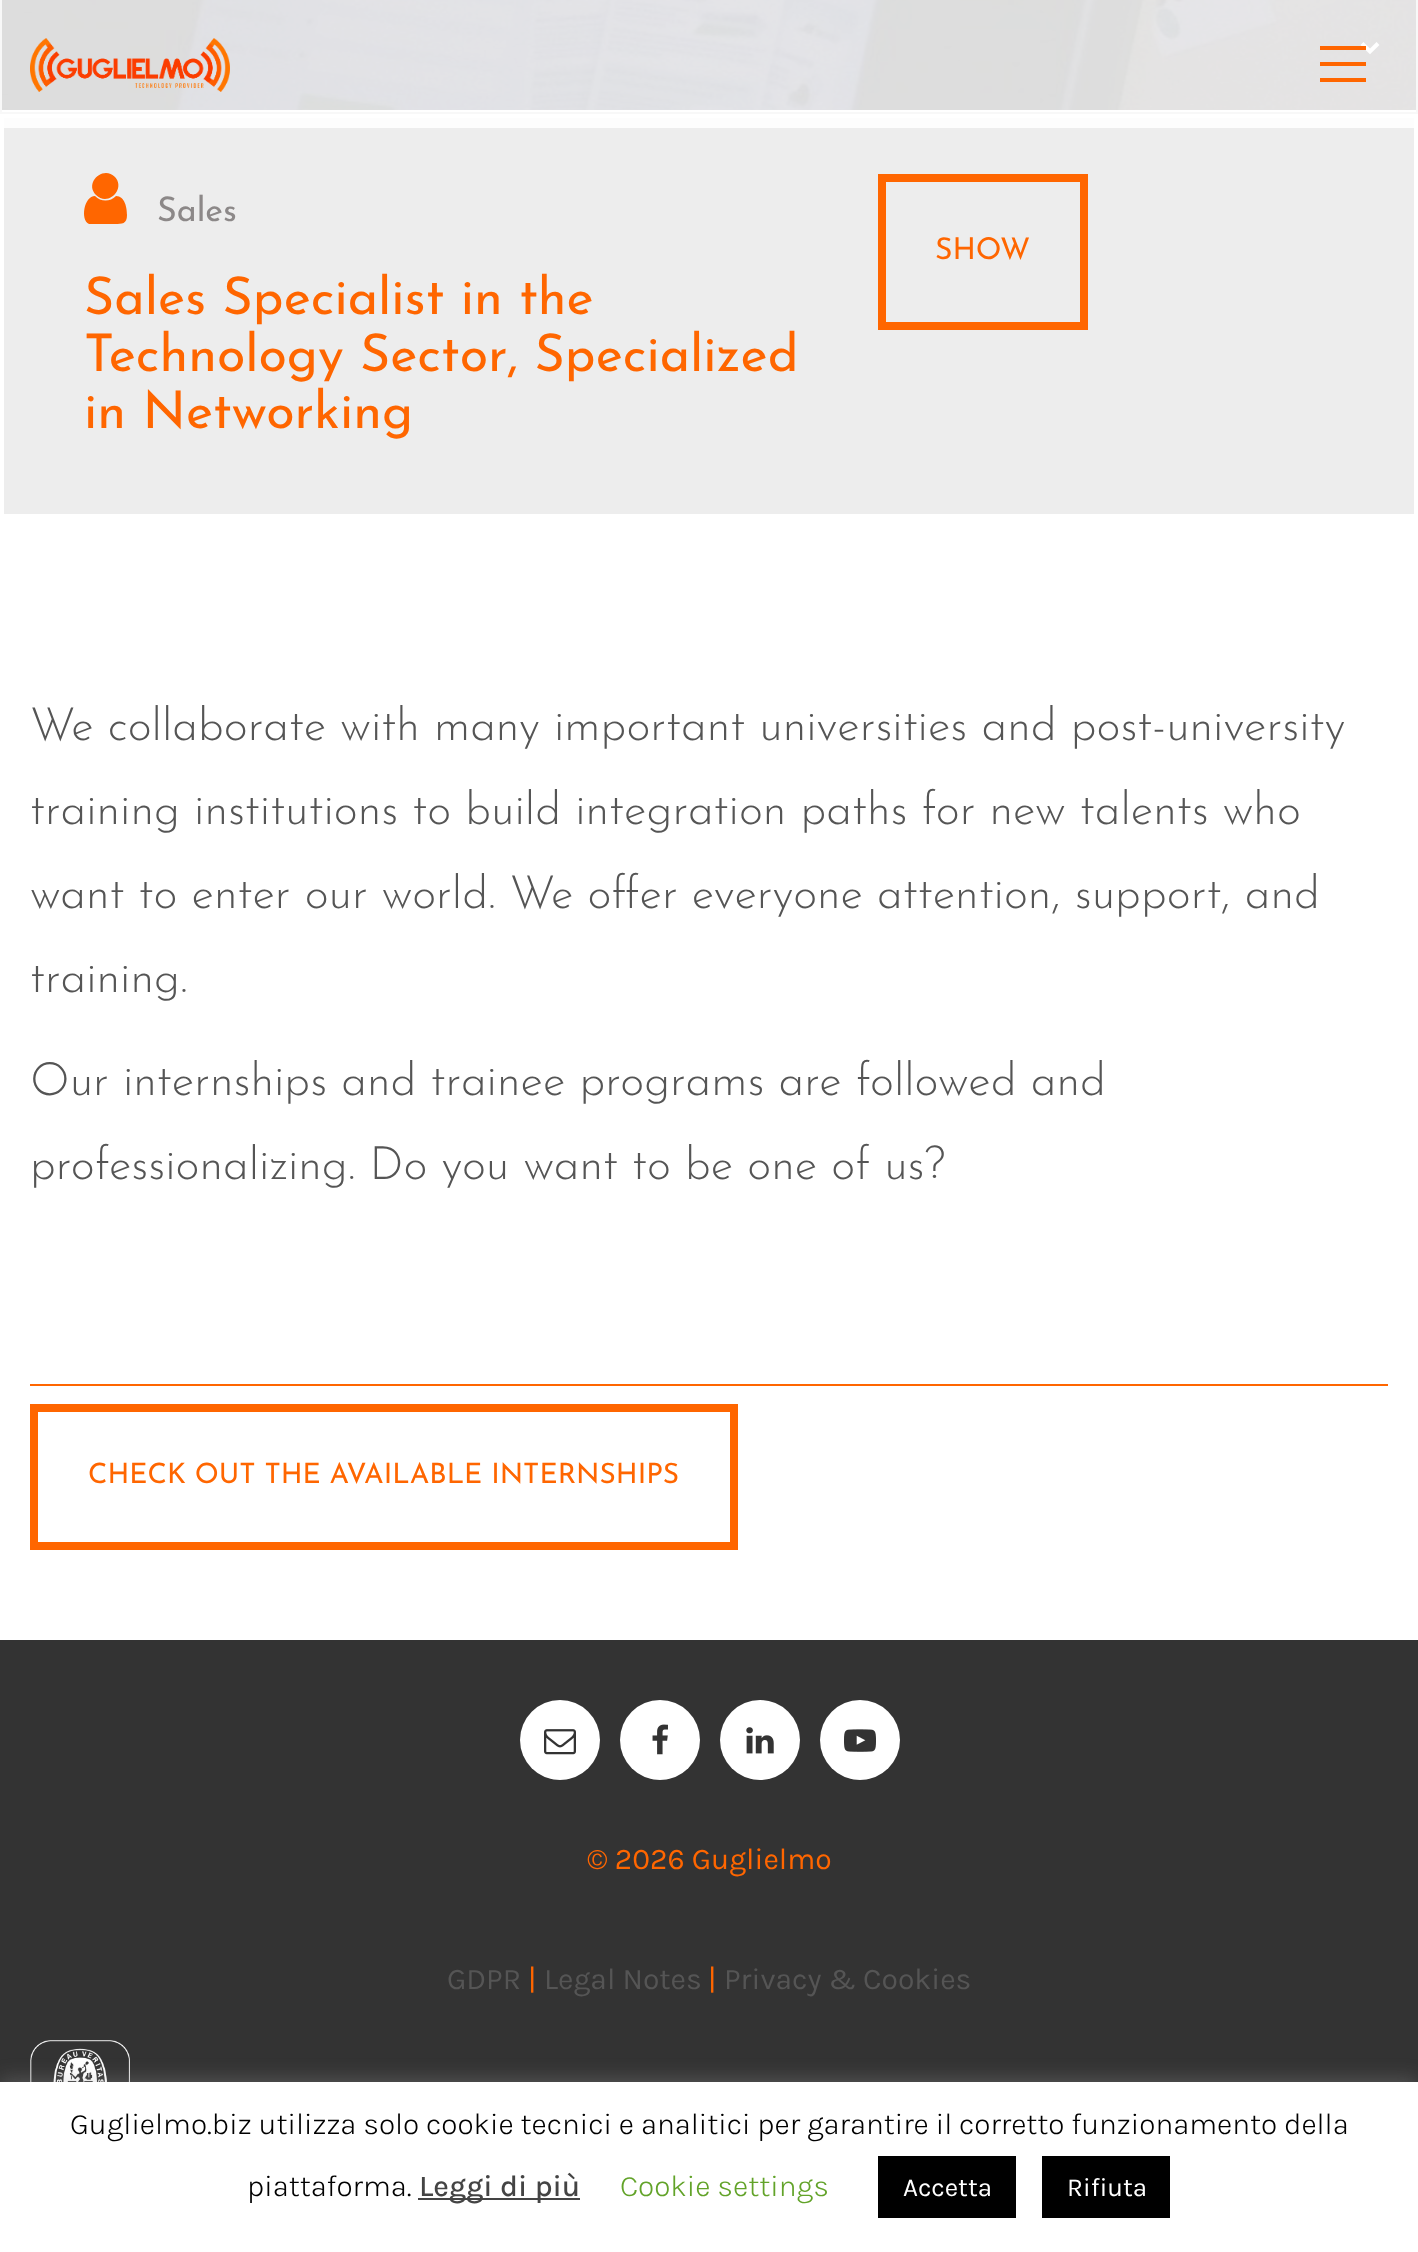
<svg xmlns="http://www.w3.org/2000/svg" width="1418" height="2252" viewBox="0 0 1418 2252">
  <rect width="100%" height="100%" fill="#fff"/>
  <image x="2" y="0" width="1414" height="110" href="img/2.png"/>
  <path d="M1 -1h1416v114H1z" fill="none" stroke="#cdcdcd" stroke-width="2"/>
  <path d="M1362 43.5L1370 51.5L1378 43.5" fill="none" stroke="#fff" stroke-width="4"/>
  <path d="M4 118h1410v396H4z" fill="#ededed"/>
  <path d="M0 0h1418v128H0z" fill="#ffffffd9"/>
  <image x="30" y="38" width="200" height="54" href="img/1.png"/>
  <path d="M1320 62h46v4H1320z" fill="#f60"/>
  <path d="M1320 46h46v4H1320z" fill="#f60"/>
  <path d="M1320 78h46v4H1320z" fill="#f60"/>
  <path d="M127 215C127 224 122 224 115 224H89C80 220 84 196 95 196C101 202 110 202 116 196C125 196 127 208 127 215ZM115 177C126 189 108 207 96 195C84 183 103 165 115 177Z" fill="#f60"/>
  <path d="M882 178h202v148H882z" fill="none" stroke="#f60" stroke-width="8"/>
  <path d="M30 1384h1358v2H30z" fill="#f60"/>
  <path d="M44 1408H734V1546H34V1408Z" fill="none" stroke="#f60" stroke-width="8"/>
  <path d="M0 1640h1418v442H0z" fill="#333"/>
  <circle cx="560" cy="1740" r="40" fill="#fff"/>
  <image x="544" y="1729" width="32" height="26" href="img/3.png"/>
  <circle cx="660" cy="1740" r="40" fill="#fff"/>
  <image x="652" y="1724" width="16" height="31" href="img/4.png"/>
  <circle cx="760" cy="1740" r="40" fill="#fff"/>
  <image x="746" y="1727" width="28" height="27" href="img/5.png"/>
  <circle cx="860" cy="1740" r="40" fill="#fff"/>
  <image x="844" y="1729" width="32" height="23" href="img/6.png"/>
  <image x="30" y="2040" width="100" height="42" href="img/7.png"/>
  <path d="M0 2080h1418v170H0z" fill="#acabab4d" filter="blur(10px)"/>
  <path d="M0 2082h1418v170H0z" fill="#fff"/>
  <path d="M418 2198h162v2H418z" fill="#444"/>
  <path d="M878 2156h138v62H878z" fill="#000"/>
  <path d="M1042 2156h128v62H1042z" fill="#000"/>
  <text x="157" y="221" font-family="Josefin Sans" font-size="34" fill="#8c8888">Sales</text>
  <g font-family="Josefin Sans" font-size="52" fill="#f60">
    <text x="84" y="314">Sales Specialist in the</text>
    <text x="84" y="371">Technology Sector, Specialized</text>
    <text x="84" y="428">in Networking</text>
  </g>
  <text x="935" y="259" font-family="Josefin Sans" font-size="30" fill="#f60">SHOW</text>
  <g font-family="Josefin Sans" font-size="46" font-weight="300" fill="#555">
    <text x="30" y="740">We collaborate with many important universities and post-university</text>
    <text x="30" y="824">training institutions to build integration paths for new talents who</text>
    <text x="30" y="908">want to enter our world. We offer everyone attention, support, and</text>
    <text x="30" y="992">training.</text>
    <text x="30" y="1095">Our internships and trainee programs are followed and</text>
    <text x="30" y="1179">professionalizing. Do you want to be one of us?</text>
  </g>
  <text x="88" y="1483" font-family="Josefin Sans" font-size="28" fill="#f60">CHECK OUT THE AVAILABLE INTERNSHIPS</text>
  <text x="587" y="1869" font-family="Karla" font-size="30" fill="#f60">© 2026 Guglielmo</text>
  <text x="447" y="1989" font-family="Karla" font-size="30" fill="#555">GDPR</text>
  <text x="528" y="1989" font-family="Karla" font-size="30" fill="#f60">|</text>
  <text x="544" y="1989" font-family="Karla" font-size="30" fill="#555">Legal Notes</text>
  <text x="708" y="1989" font-family="Karla" font-size="30" fill="#f60">|</text>
  <text x="724" y="1989" font-family="Karla" font-size="30" fill="#555">Privacy &amp; Cookies</text>
  <g font-family="Karla" font-size="30" font-weight="300" fill="#000">
    <text x="70" y="2134">Guglielmo.biz utilizza solo cookie tecnici e analitici per garantire il corretto funzionamento della</text>
    <text x="247" y="2196">piattaforma.</text>
  </g>
  <text x="419" y="2196" font-family="Karla" font-size="30" font-weight="500" fill="#444">Leggi di più</text>
  <text x="620" y="2196" font-family="Karla" font-size="30" font-weight="300" fill="#62a329">Cookie settings</text>
  <g font-family="Karla" font-size="26" fill="#fff">
    <text x="903" y="2196">Accetta</text>
    <text x="1067" y="2196">Rifiuta</text>
  </g>
</svg>
